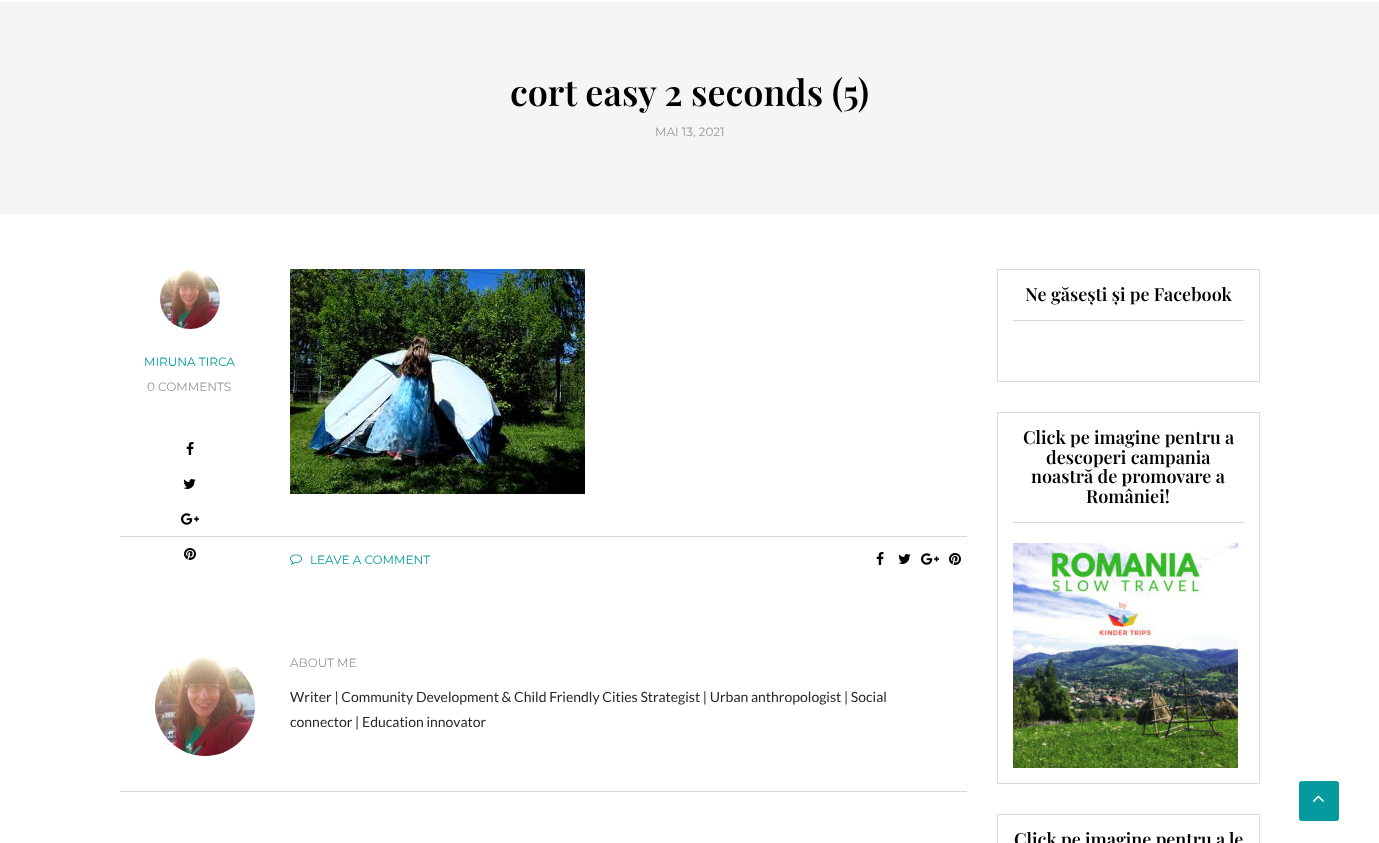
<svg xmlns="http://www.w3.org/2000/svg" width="1379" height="843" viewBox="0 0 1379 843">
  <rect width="100%" height="100%" fill="#fff"/>
  <path d="M0 2h1379v212H0z" fill="#f5f5f5"/>
  <image x="160" y="269" width="60" height="60" href="img/1.png"/>
  <image x="186" y="442" width="8" height="13" href="img/2.png"/>
  <image x="183" y="479" width="13" height="10" href="img/3.png"/>
  <image x="181" y="513" width="18" height="12" href="img/4.png"/>
  <image x="184" y="548" width="12" height="12" href="img/5.png"/>
  <image x="290" y="269" width="295" height="225" href="img/6.png"/>
  <path d="M120 536h847v1H120z" fill="#d6d6d6"/>
  <image x="290" y="554" width="12" height="11" href="img/7.png"/>
  <image x="876" y="552" width="8" height="13" href="img/2.png"/>
  <image x="898" y="554" width="13" height="10" href="img/3.png"/>
  <image x="921" y="553" width="18" height="12" href="img/4.png"/>
  <image x="949" y="553" width="12" height="12" href="img/5.png"/>
  <path d="M120 791h847v1H120z" fill="#d6d6d6"/>
  <image x="155" y="656" width="100" height="100" href="img/8.png"/>
  <path d="M997.5 269.5h262v112H997.5z" fill="none" stroke="#d9d9d9"/>
  <path d="M1013 320h231v1H1013z" fill="#d9d9d9"/>
  <path d="M997.5 412.5h262v371H997.5z" fill="none" stroke="#d9d9d9"/>
  <path d="M1013 522h231v1H1013z" fill="#d9d9d9"/>
  <image x="1013" y="543" width="225" height="225" href="img/9.png"/>
  <path d="M997.5 814.5h262v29H997.5z" fill="none" stroke="#d9d9d9"/>
  <rect x="1299" y="781" width="40" height="40" rx="3" fill="#059b9e"/>
  <image x="1312" y="795" width="12" height="7" href="img/10.png"/>
  <text x="510" y="106" font-family="Playfair Display" font-size="36" font-weight="600" fill="#000">cort easy 2 seconds (5)</text>
  <text x="655" y="136" font-family="Montserrat" font-size="12" font-weight="100" fill="#989898">MAI 13, 2021</text>
  <text x="144" y="366" font-family="Montserrat" font-size="12" font-weight="100" fill="#059b9e">MIRUNA TIRCA</text>
  <text x="147" y="391" font-family="Montserrat" font-size="12" font-weight="100" fill="#989898">0 COMMENTS</text>
  <text x="310" y="564" font-family="Montserrat" font-size="12" font-weight="100" fill="#059b9e">LEAVE A COMMENT</text>
  <text x="290" y="667" font-family="Montserrat" font-size="12" font-weight="100" fill="#989898">ABOUT ME</text>
  <g font-family="Lato" font-size="14" fill="#292629">
    <text x="290" y="702">Writer | Community Development &amp; Child Friendly Cities Strategist | Urban anthropologist | Social</text>
    <text x="290" y="727">connector | Education innovator</text>
  </g>
  <g font-family="Playfair Display" font-size="18" font-weight="600" fill="#000">
    <text x="1025" y="301">Ne găsești și pe Facebook</text>
    <text x="1023" y="444">Click pe imagine pentru a</text>
    <text x="1046" y="464">descoperi campania</text>
    <text x="1031" y="483">noastră de promovare a</text>
    <text x="1086" y="503">României!</text>
    <text x="1014" y="846">Click pe imagine pentru a le</text>
  </g>
</svg>
